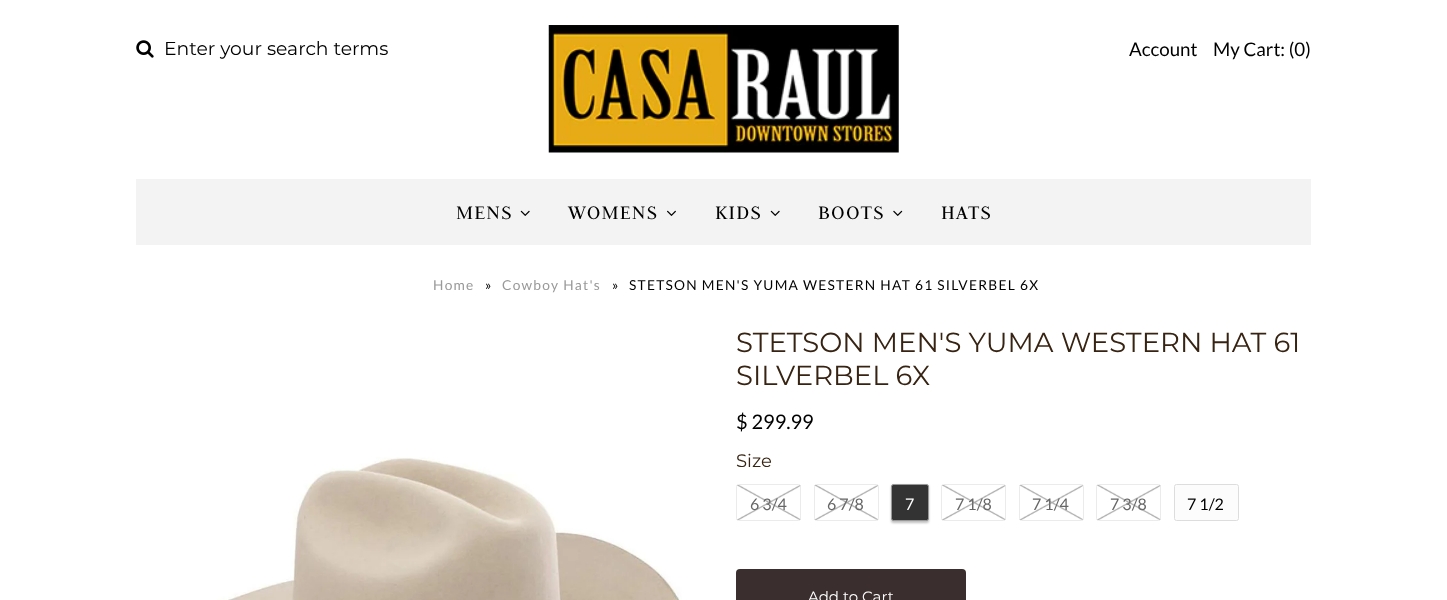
<svg xmlns="http://www.w3.org/2000/svg" width="1447" height="600" viewBox="0 0 1447 600">
  <rect width="100%" height="100%" fill="#fff"/>
  <image x="136" y="40" width="18" height="18" href="img/1.png"/>
  <image x="548" y="25" width="351" height="128" href="img/2.png"/>
  <path d="M136 179h1175v66H136z" fill="#f3f3f3"/>
  <image x="520" y="210" width="10" height="6" href="img/3.png"/>
  <image x="667" y="210" width="9" height="6" href="img/4.png"/>
  <image x="770" y="210" width="10" height="6" href="img/3.png"/>
  <image x="893" y="210" width="10" height="6" href="img/5.png"/>
  <image x="217" y="457" width="465" height="143" href="img/6.png"/>
  <rect x="736.5" y="484.5" width="64" height="36" rx="2" fill="none" stroke="#ebebeb"/>
  <rect x="814.5" y="484.5" width="64" height="36" rx="2" fill="none" stroke="#ebebeb"/>
  <rect x="891" y="485" width="38" height="38" rx="2.5" fill="#00000040" filter="blur(1px)"/>
  <rect x="891.5" y="484.5" width="37" height="36" rx="2" fill="#333" stroke="#999"/>
  <rect x="941.5" y="484.5" width="64" height="36" rx="2" fill="none" stroke="#ebebeb"/>
  <rect x="1019.5" y="484.5" width="64" height="36" rx="2" fill="none" stroke="#ebebeb"/>
  <rect x="1096.5" y="484.5" width="64" height="36" rx="2" fill="none" stroke="#ebebeb"/>
  <rect x="1174.5" y="484.5" width="64" height="36" rx="2" fill="#fcfcfc" stroke="#ddd"/>
  <rect x="736" y="569" width="230" height="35" rx="4" fill="#3a2e2e"/>
  <text x="164" y="55" font-family="Montserrat" font-size="18.75" font-weight="100" fill="#000">Enter your search terms</text>
  <g font-family="Lato" font-size="18.75" fill="#000">
    <text x="1129" y="56">Account</text>
    <text x="1213" y="56">My Cart: (0)</text>
  </g>
  <g font-family="Judson" font-size="21.25" letter-spacing="1.25" fill="#000">
    <text x="456" y="219">MENS</text>
    <text x="568" y="219">WOMENS</text>
    <text x="715" y="219">KIDS</text>
    <text x="818" y="219">BOOTS</text>
    <text x="941" y="219">HATS</text>
  </g>
  <text x="433" y="290" font-family="Lato" font-size="13.75" letter-spacing="1.25" fill="#999">Home</text>
  <text x="485" y="290" font-family="Lato" font-size="13.75" letter-spacing="1.25" fill="#000">»</text>
  <text x="502" y="290" font-family="Lato" font-size="13.75" letter-spacing="1.25" fill="#999">Cowboy Hat's</text>
  <g font-family="Lato" font-size="13.75" letter-spacing="1.25" fill="#000">
    <text x="612" y="290">»</text>
    <text x="629" y="290">STETSON MEN'S YUMA WESTERN HAT 61 SILVERBEL 6X</text>
  </g>
  <g font-family="Montserrat" font-size="27.5" font-weight="100" fill="#372312">
    <text x="736" y="352">STETSON MEN'S YUMA WESTERN HAT 61</text>
    <text x="736" y="385">SILVERBEL 6X</text>
  </g>
  <text x="736" y="429" font-family="Lato" font-size="20" fill="#000">$ 299.99</text>
  <text x="736" y="467" font-family="Montserrat" font-size="18" font-weight="100" fill="#372312">Size</text>
  <text x="750" y="510" font-family="Lato" font-size="16" fill="#666">6 3/4</text>
  <image x="737" y="485" width="64" height="35" href="img/7.png"/>
  <text x="827" y="510" font-family="Lato" font-size="16" fill="#666">6 7/8</text>
  <image x="814" y="485" width="64" height="35" href="img/8.png"/>
  <text x="905" y="510" font-family="Lato" font-size="16" fill="#fff">7</text>
  <text x="955" y="510" font-family="Lato" font-size="16" fill="#666">7 1/8</text>
  <image x="942" y="485" width="64" height="35" href="img/9.png"/>
  <text x="1032" y="510" font-family="Lato" font-size="16" fill="#666">7 1/4</text>
  <image x="1019" y="485" width="64" height="35" href="img/10.png"/>
  <text x="1110" y="510" font-family="Lato" font-size="16" fill="#666">7 3/8</text>
  <image x="1097" y="485" width="64" height="35" href="img/11.png"/>
  <text x="1187" y="510" font-family="Lato" font-size="16" fill="#000">7 1/2</text>
  <text x="808" y="602" font-family="Montserrat" font-size="15" font-weight="100" fill="#fff">Add to Cart</text>
</svg>
